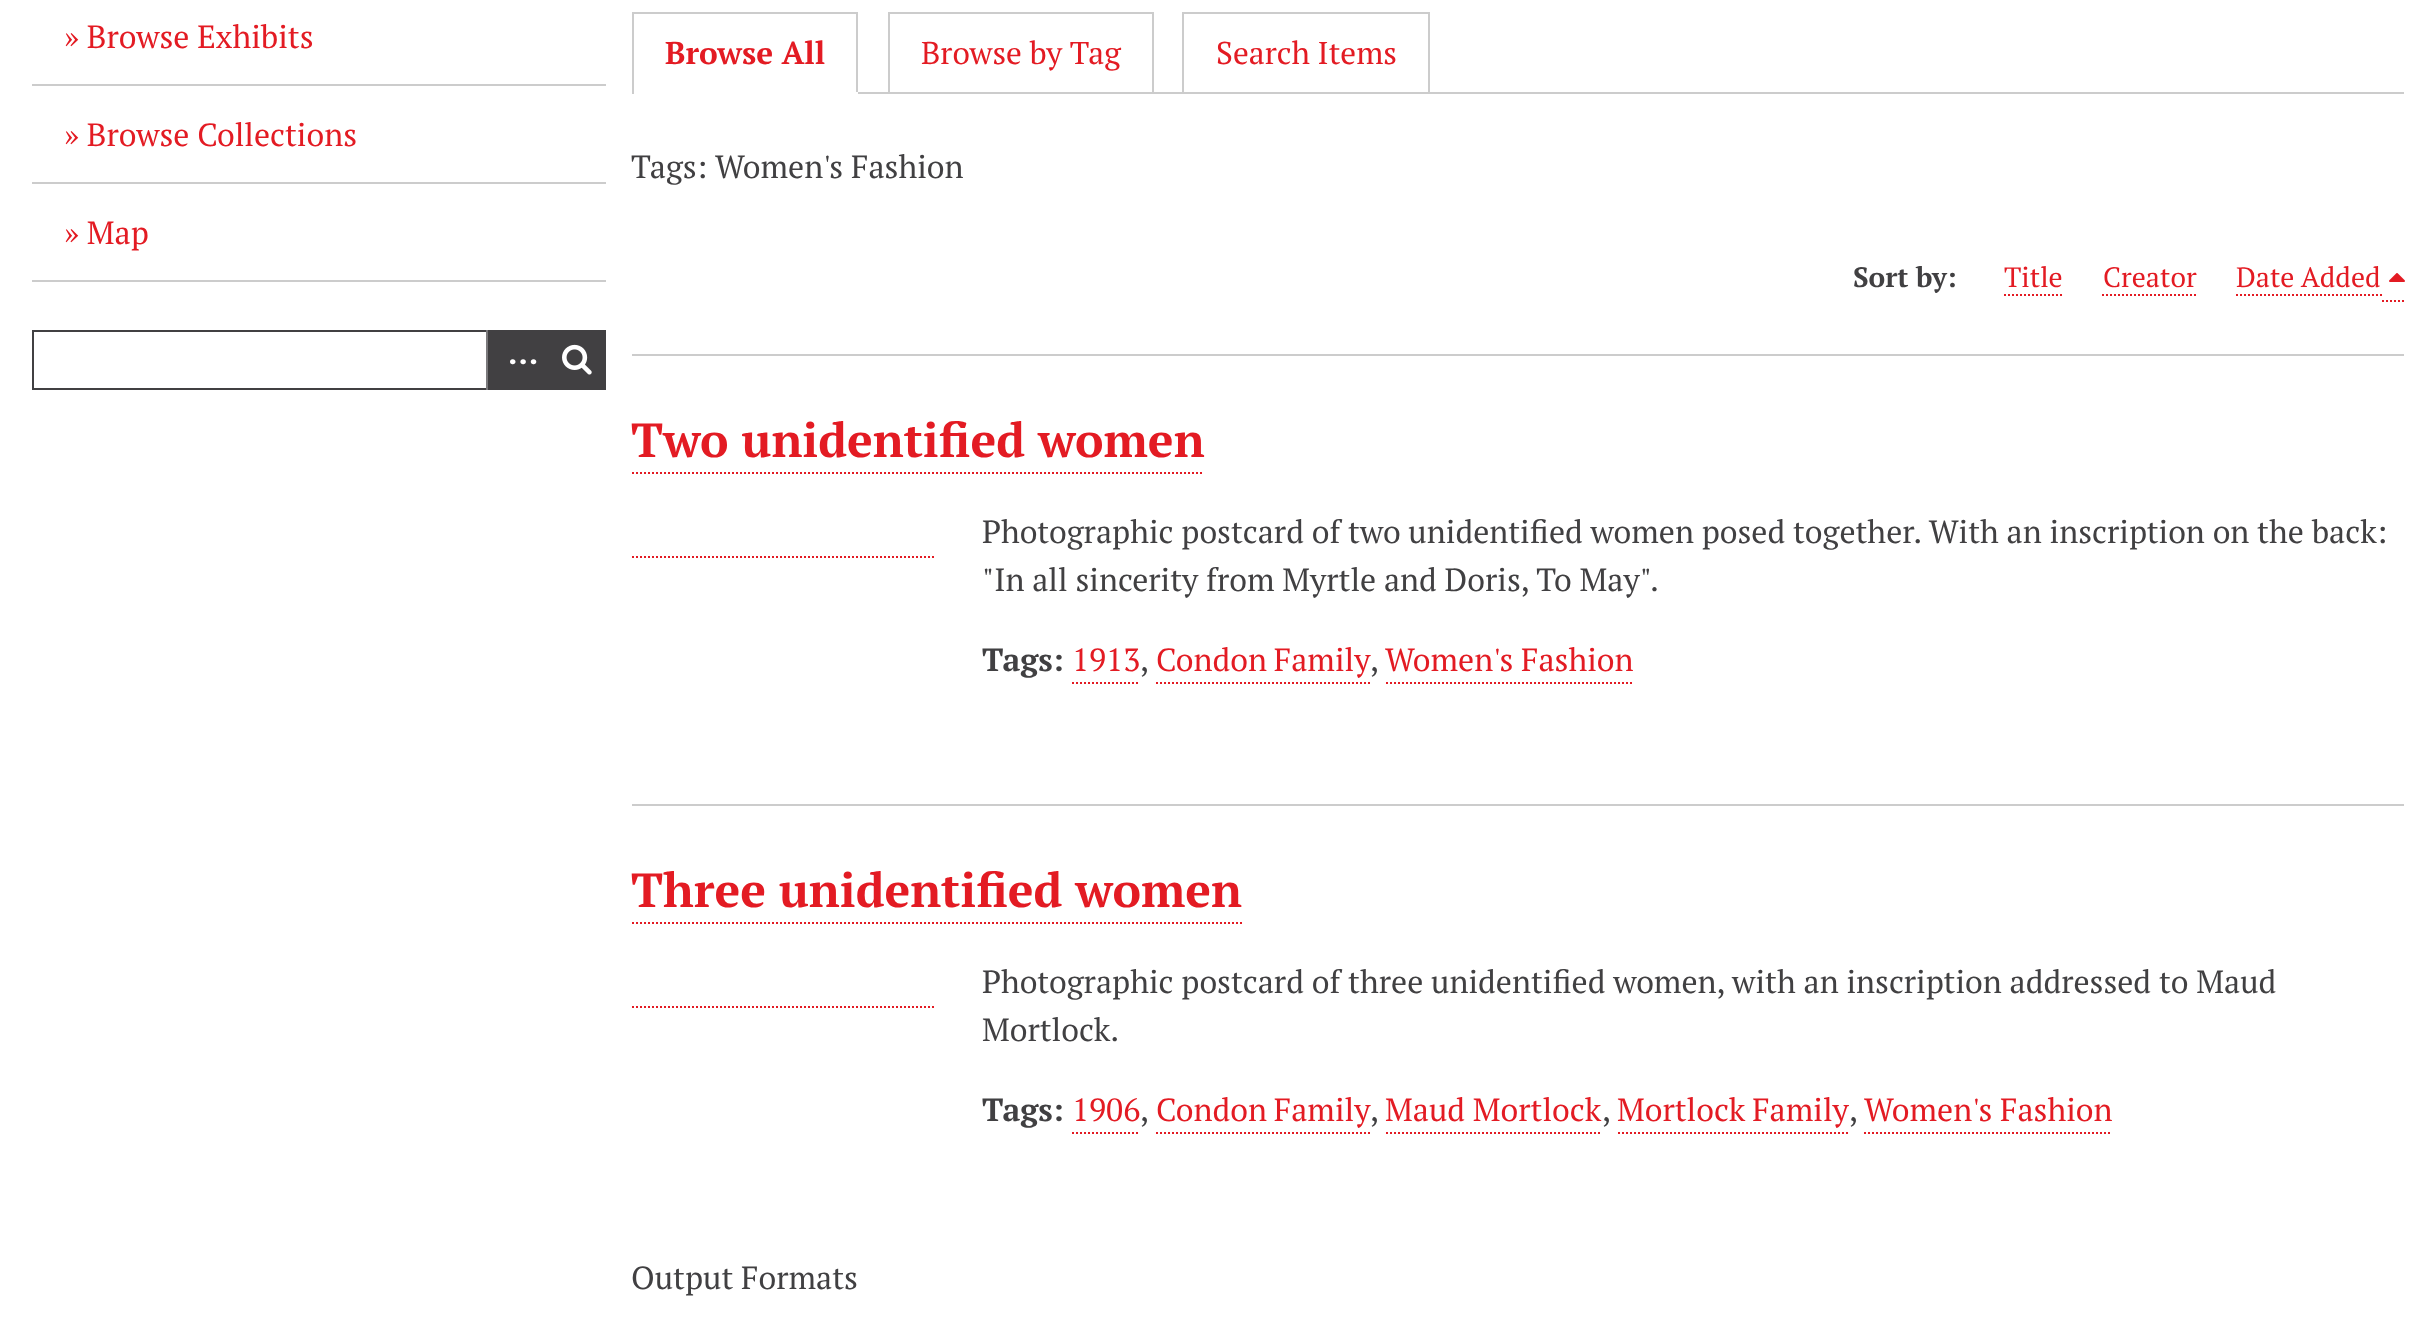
<svg xmlns="http://www.w3.org/2000/svg" width="2436" height="1327" viewBox="0 0 2436 1327">
  <rect width="100%" height="100%" fill="#fff"/>
  <path d="M32 84h574v2H32z" fill="#ccc"/>
  <path d="M32 182h574v2H32z" fill="#ccc"/>
  <path d="M32 280h574v2H32z" fill="#ccc"/>
  <path d="M33 331h572v58H33z" fill="none" stroke="#414042" stroke-width="2"/>
  <path d="M488 332h116v56H488z" fill="#414042"/>
  <path d="M486 330h2v60H486z" fill="#7a797b"/>
  <image x="562" y="344" width="30" height="31" href="img/1.png"/>
  <path d="M858 92h1546v2H858z" fill="#ccc"/>
  <path d="M632 12h226v2H632z" fill="#ccc"/>
  <path d="M856 12h2v82H856z" fill="#ccc"/>
  <path d="M856 92h2v2H856z" fill="#fff"/>
  <path d="M632 12h2v82H632z" fill="#ccc"/>
  <path d="M889 13h264v80H889z" fill="none" stroke="#ccc" stroke-width="2"/>
  <path d="M1182 12h248v2H1182z" fill="#ccc"/>
  <path d="M1428 12h2v80H1428z" fill="#ccc"/>
  <path d="M1182 12h2v80H1182z" fill="#ccc"/>
  <path d="M2004 295H2062" fill="none" stroke="#e31b23" stroke-width="2" stroke-dasharray="2 2"/>
  <path d="M2102 295H2196" fill="none" stroke="#e31b23" stroke-width="2" stroke-dasharray="2 2"/>
  <path d="M2236 295H2382" fill="none" stroke="#e31b23" stroke-width="2" stroke-dasharray="2 2"/>
  <path d="M2382 301H2404" fill="none" stroke="#e31b23" stroke-width="2" stroke-dasharray="2 2"/>
  <image x="2389" y="273" width="16" height="9" href="img/2.png"/>
  <path d="M632 354h1772v2H632z" fill="#ccc"/>
  <path d="M632 473H1204" fill="none" stroke="#e31b23" stroke-width="2" stroke-dasharray="2 2"/>
  <path d="M632 557H934" fill="none" stroke="#e31b23" stroke-width="2" stroke-dasharray="2 2"/>
  <path d="M1072 683H1140" fill="none" stroke="#e31b23" stroke-width="2" stroke-dasharray="2 2"/>
  <path d="M1156 683H1370" fill="none" stroke="#e31b23" stroke-width="2" stroke-dasharray="2 2"/>
  <path d="M1386 683H1634" fill="none" stroke="#e31b23" stroke-width="2" stroke-dasharray="2 2"/>
  <path d="M632 804h1772v2H632z" fill="#ccc"/>
  <path d="M632 923H1242" fill="none" stroke="#e31b23" stroke-width="2" stroke-dasharray="2 2"/>
  <path d="M632 1007H934" fill="none" stroke="#e31b23" stroke-width="2" stroke-dasharray="2 2"/>
  <path d="M1072 1133H1140" fill="none" stroke="#e31b23" stroke-width="2" stroke-dasharray="2 2"/>
  <path d="M1156 1133H1370" fill="none" stroke="#e31b23" stroke-width="2" stroke-dasharray="2 2"/>
  <path d="M1386 1133H1602" fill="none" stroke="#e31b23" stroke-width="2" stroke-dasharray="2 2"/>
  <path d="M1618 1133H1848" fill="none" stroke="#e31b23" stroke-width="2" stroke-dasharray="2 2"/>
  <path d="M1864 1133H2112" fill="none" stroke="#e31b23" stroke-width="2" stroke-dasharray="2 2"/>
  <g font-family="PT Serif" font-size="32" fill="#e31b23">
    <text x="64" y="48">» Browse Exhibits</text>
    <text x="64" y="146">» Browse Collections</text>
    <text x="64" y="244">» Map</text>
  </g>
  <text x="508" y="364" font-family="PT Serif" font-size="32" font-weight="bold" fill="#fff">…</text>
  <text x="665" y="64" font-family="PT Serif" font-size="31.5" font-weight="bold" fill="#e31b23">Browse All</text>
  <g font-family="PT Serif" font-size="31.5" fill="#e31b23">
    <text x="921" y="64">Browse by Tag</text>
    <text x="1216" y="64">Search Items</text>
  </g>
  <text x="631" y="178" font-family="PT Serif" font-size="32" fill="#414042">Tags: Women's Fashion</text>
  <text x="1853" y="287" font-family="PT Serif" font-size="28" font-weight="bold" fill="#414042">Sort by:</text>
  <g font-family="PT Serif" font-size="28" fill="#e31b23">
    <text x="2004" y="287">Title</text>
    <text x="2103" y="287">Creator</text>
    <text x="2236" y="287">Date Added</text>
  </g>
  <text x="631" y="457" font-family="PT Serif" font-size="48" font-weight="bold" fill="#e31b23">Two unidentified women</text>
  <g font-family="PT Serif" font-size="32" fill="#414042">
    <text x="982" y="543">Photographic postcard of two unidentified women posed together. With an inscription on the back:</text>
    <text x="982" y="591">"In all sincerity from Myrtle and Doris, To May".</text>
  </g>
  <text x="982" y="671" font-family="PT Serif" font-size="32" font-weight="bold" fill="#414042">Tags:</text>
  <text x="1072" y="671" font-family="PT Serif" font-size="32" fill="#e31b23">1913</text>
  <text x="1140" y="671" font-family="PT Serif" font-size="32" fill="#414042">,</text>
  <text x="1156" y="671" word-spacing="-1" font-family="PT Serif" font-size="32" fill="#e31b23">Condon Family</text>
  <text x="1370" y="671" font-family="PT Serif" font-size="32" fill="#414042">,</text>
  <text x="1385" y="671" font-family="PT Serif" font-size="32" fill="#e31b23">Women's Fashion</text>
  <text x="631" y="907" font-family="PT Serif" font-size="48" font-weight="bold" fill="#e31b23">Three unidentified women</text>
  <g font-family="PT Serif" font-size="32" fill="#414042">
    <text x="982" y="993">Photographic postcard of three unidentified women, with an inscription addressed to Maud</text>
    <text x="982" y="1041">Mortlock.</text>
  </g>
  <text x="982" y="1121" font-family="PT Serif" font-size="32" font-weight="bold" fill="#414042">Tags:</text>
  <text x="1072" y="1121" font-family="PT Serif" font-size="32" fill="#e31b23">1906</text>
  <text x="1140" y="1121" font-family="PT Serif" font-size="32" fill="#414042">,</text>
  <text x="1156" y="1121" word-spacing="-1" font-family="PT Serif" font-size="32" fill="#e31b23">Condon Family</text>
  <text x="1370" y="1121" font-family="PT Serif" font-size="32" fill="#414042">,</text>
  <text x="1385" y="1121" font-family="PT Serif" font-size="32" fill="#e31b23">Maud Mortlock</text>
  <text x="1602" y="1121" font-family="PT Serif" font-size="32" fill="#414042">,</text>
  <text x="1617" y="1121" word-spacing="-1" font-family="PT Serif" font-size="32" fill="#e31b23">Mortlock Family</text>
  <text x="1849" y="1121" font-family="PT Serif" font-size="32" fill="#414042">,</text>
  <text x="1864" y="1121" font-family="PT Serif" font-size="32" fill="#e31b23">Women's Fashion</text>
  <text x="631" y="1289" font-family="PT Serif" font-size="32" fill="#414042">Output Formats</text>
</svg>
